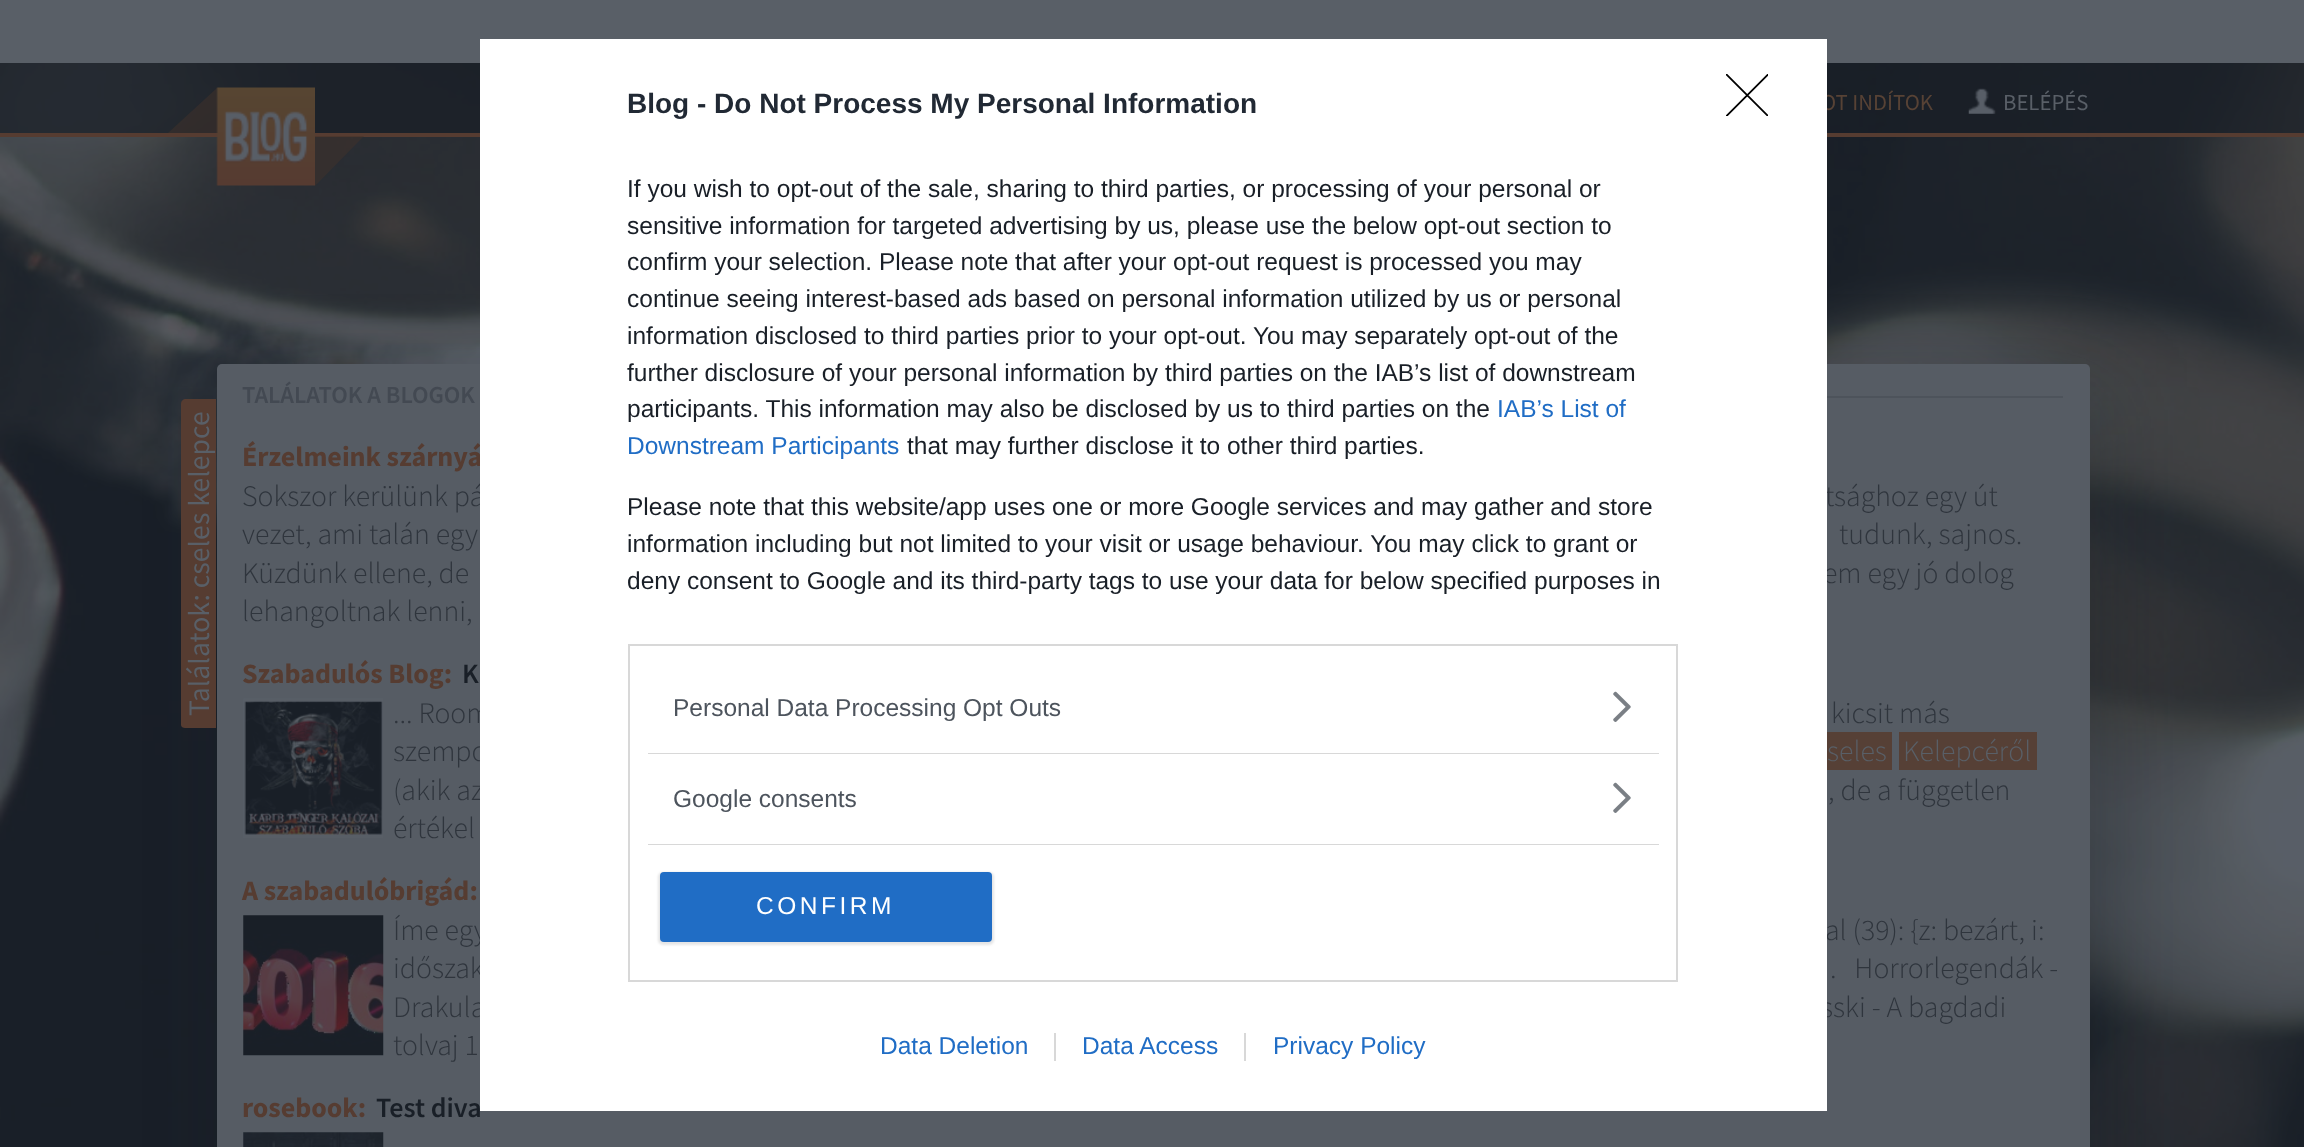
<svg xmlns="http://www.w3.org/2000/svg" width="2304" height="1147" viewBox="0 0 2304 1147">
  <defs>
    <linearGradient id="g1" gradientUnits="userSpaceOnUse" x1="1153" y1="364" x2="1153" y2="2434"><stop offset="0.8" stop-color="#565c64"/><stop offset="1" stop-color="#56595f"/></linearGradient>
    <clipPath id="clip1"><path d="M1726 74h42v42H1726z"/></clipPath>
  </defs>
  <rect width="100%" height="100%" fill="#fff"/>
  <path d="M0 0h2304v63H0z" fill="#595f67"/>
  <image x="0" y="63" width="2304" height="1084" href="img/3.png"/>
  <path d="M0 63h2304v70H0z" fill="#191f27bf"/>
  <path d="M217 133H168L217 88Z" fill="#42322a80"/>
  <path d="M0 133h2304v4H0z" fill="#563c31"/>
  <image x="216" y="87" width="99" height="99" href="img/1.png"/>
  <path d="M315 136H364L315 186Z" fill="#42322a80"/>
  <image x="1968" y="88" width="28" height="26" href="img/2.png"/>
  <rect x="235" y="387" width="1872" height="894" rx="5" fill="#191f2742" filter="blur(43px)"/>
  <rect x="217" y="364" width="1873" height="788" rx="5" fill="url(#g1)"/>
  <path d="M1827 396h236v2H1827z" fill="#4d535b"/>
  <path d="M181 725V404C181 401 183 399 186 399H216V728H185C183 728 181 727 181 725Z" fill="#563c31"/>
  <image x="243" y="698" width="140" height="140" href="img/4.png"/>
  <path d="M1827 732h65v38H1827z" fill="#564036"/>
  <path d="M1899 732h138v38H1899z" fill="#564036"/>
  <image x="243" y="915" width="141" height="141" href="img/5.png"/>
  <image x="243" y="1132" width="141" height="15" href="img/6.png"/>
  <text x="1821" y="110" font-family="Source Sans Pro" font-size="22.75" fill="#574235">OT INDÍTOK</text>
  <text x="2003" y="110" font-family="Source Sans Pro" font-size="22.75" fill="#595f67">BELÉPÉS</text>
  <text x="242" y="403" font-family="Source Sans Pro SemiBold" font-size="24.5" font-weight="600" fill="#434952">TALÁLATOK A BLOGOK</text>
  <text x="209" y="716" transform="rotate(-90 209 716)" font-family="Source Sans Pro" font-size="29.75" fill="#595f67">Találatok: cseles kelepce</text>
  <text x="242" y="466" font-family="Source Sans Pro" font-size="28" font-weight="bold" fill="#563c31">Érzelmeink szárnyá</text>
  <g font-family="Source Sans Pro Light" font-size="29.75" font-weight="300" fill="#2f353d">
    <text x="242" y="506">Sokszor kerülünk pá</text>
    <text x="1825" y="506">tsághoz egy út</text>
    <text x="242" y="544">vezet, ami talán egy</text>
    <text x="1839" y="544">tudunk, sajnos.</text>
    <text x="242" y="583">Küzdünk ellene, de</text>
    <text x="1823" y="583">em egy jó dolog</text>
    <text x="242" y="621">lehangoltnak lenni,</text>
  </g>
  <text x="242" y="683" font-family="Source Sans Pro" font-size="28" font-weight="bold" fill="#563c31">Szabadulós Blog:</text>
  <text x="462" y="683" font-family="Source Sans Pro SemiBold" font-size="28" font-weight="600" fill="#191f27">K</text>
  <g font-family="Source Sans Pro Light" font-size="29.75" font-weight="300" fill="#2f353d">
    <text x="393" y="723">... Room</text>
    <text x="1831" y="723">kicsit más</text>
    <text x="393" y="761">szempo</text>
  </g>
  <g font-family="Source Sans Pro Light" font-size="29.75" font-weight="300" fill="#595f67">
    <text x="1827" y="761">seles</text>
    <text x="1903" y="761">Kelepcéről</text>
  </g>
  <g font-family="Source Sans Pro Light" font-size="29.75" font-weight="300" fill="#2f353d">
    <text x="393" y="800">(akik az</text>
    <text x="1828" y="800">, de a független</text>
    <text x="393" y="838">értékel</text>
  </g>
  <text x="242" y="900" font-family="Source Sans Pro" font-size="28" font-weight="bold" fill="#563c31">A szabadulóbrigád:</text>
  <g font-family="Source Sans Pro Light" font-size="29.75" font-weight="300" fill="#2f353d">
    <text x="393" y="940">Íme egy</text>
    <text x="1825" y="940">al (39): {z: bezárt, i:</text>
    <text x="393" y="978">időszak</text>
    <text x="1830" y="978" xml:space="preserve">.   Horrorlegendák -</text>
    <text x="393" y="1017">Drakula</text>
    <text x="1821" y="1017">sski - A bagdadi</text>
    <text x="393" y="1055">tolvaj 1</text>
  </g>
  <text x="242" y="1117" font-family="Source Sans Pro" font-size="28" font-weight="bold" fill="#563c31">rosebook:</text>
  <text x="376" y="1117" font-family="Source Sans Pro SemiBold" font-size="28" font-weight="600" fill="#191f27">Test diva</text>
  <path d="M480 39h1347v1072H480z" fill="#fff"/>
  <text x="627" y="113" font-family="Liberation Sans" font-size="28" font-weight="bold" fill="#212934">Blog - Do Not Process My Personal Information</text>
  <g font-family="Liberation Sans" font-size="24.5" fill="#191f27">
    <text x="627" y="197">If you wish to opt-out of the sale, sharing to third parties, or processing of your personal or</text>
    <text x="627" y="234">sensitive information for targeted advertising by us, please use the below opt-out section to</text>
    <text x="627" y="270">confirm your selection. Please note that after your opt-out request is processed you may</text>
    <text x="627" y="307">continue seeing interest-based ads based on personal information utilized by us or personal</text>
    <text x="627" y="344">information disclosed to third parties prior to your opt-out. You may separately opt-out of the</text>
    <text x="627" y="381">further disclosure of your personal information by third parties on the IAB’s list of downstream</text>
    <text x="627" y="417">participants. This information may also be disclosed by us to third parties on the</text>
  </g>
  <g font-family="Liberation Sans" font-size="24.5" fill="#206dc5">
    <text x="1497" y="417">IAB’s List of</text>
    <text x="627" y="454">Downstream Participants</text>
  </g>
  <g font-family="Liberation Sans" font-size="24.5" fill="#191f27">
    <text x="907" y="454">that may further disclose it to other third parties.</text>
    <text x="627" y="515">Please note that this website/app uses one or more Google services and may gather and store</text>
    <text x="627" y="552">information including but not limited to your visit or usage behaviour. You may click to grant or</text>
    <text x="627" y="589">deny consent to Google and its third-party tags to use your data for below specified purposes in</text>
  </g>
  <path d="M629 645h1048v336H629z" fill="none" stroke="#d8d8d8" stroke-width="2"/>
  <path d="M648 753h1011v1H648z" fill="#d8d8d8"/>
  <text x="673" y="716" font-family="Liberation Sans" font-size="24.5" fill="#4d545d">Personal Data Processing Opt Outs</text>
  <image x="1613" y="691" width="18" height="31" href="img/7.png"/>
  <path d="M648 844h1011v1H648z" fill="#d8d8d8"/>
  <text x="673" y="807" font-family="Liberation Sans" font-size="24.5" fill="#4d545d">Google consents</text>
  <image x="1613" y="782" width="18" height="31" href="img/7.png"/>
  <rect x="658" y="872" width="336" height="73" rx="5" fill="#0000001a" filter="blur(1px)"/>
  <rect x="660" y="872" width="332" height="70" rx="4" fill="#206dc5"/>
  <text x="756" y="914" font-family="Liberation Sans" font-size="24.5" letter-spacing="3.5" fill="#fff">CONFIRM</text>
  <g clip-path="url(#clip1)">
    <path d="M1726.5 74.5L1768 116M1768 74.5L1726.5 116" fill="none" stroke="#000" stroke-width="1.8" stroke-linecap="round" stroke-linejoin="round"/>
  </g>
  <g font-family="Liberation Sans" font-size="24.5" fill="#206dc5">
    <text x="880" y="1054">Data Deletion</text>
    <text x="1082" y="1054">Data Access</text>
  </g>
  <path d="M1054 1033h2v28H1054z" fill="#d8d8d8"/>
  <text x="1273" y="1054" font-family="Liberation Sans" font-size="24.5" fill="#206dc5">Privacy Policy</text>
  <path d="M1244 1033h2v28H1244z" fill="#d8d8d8"/>
</svg>
